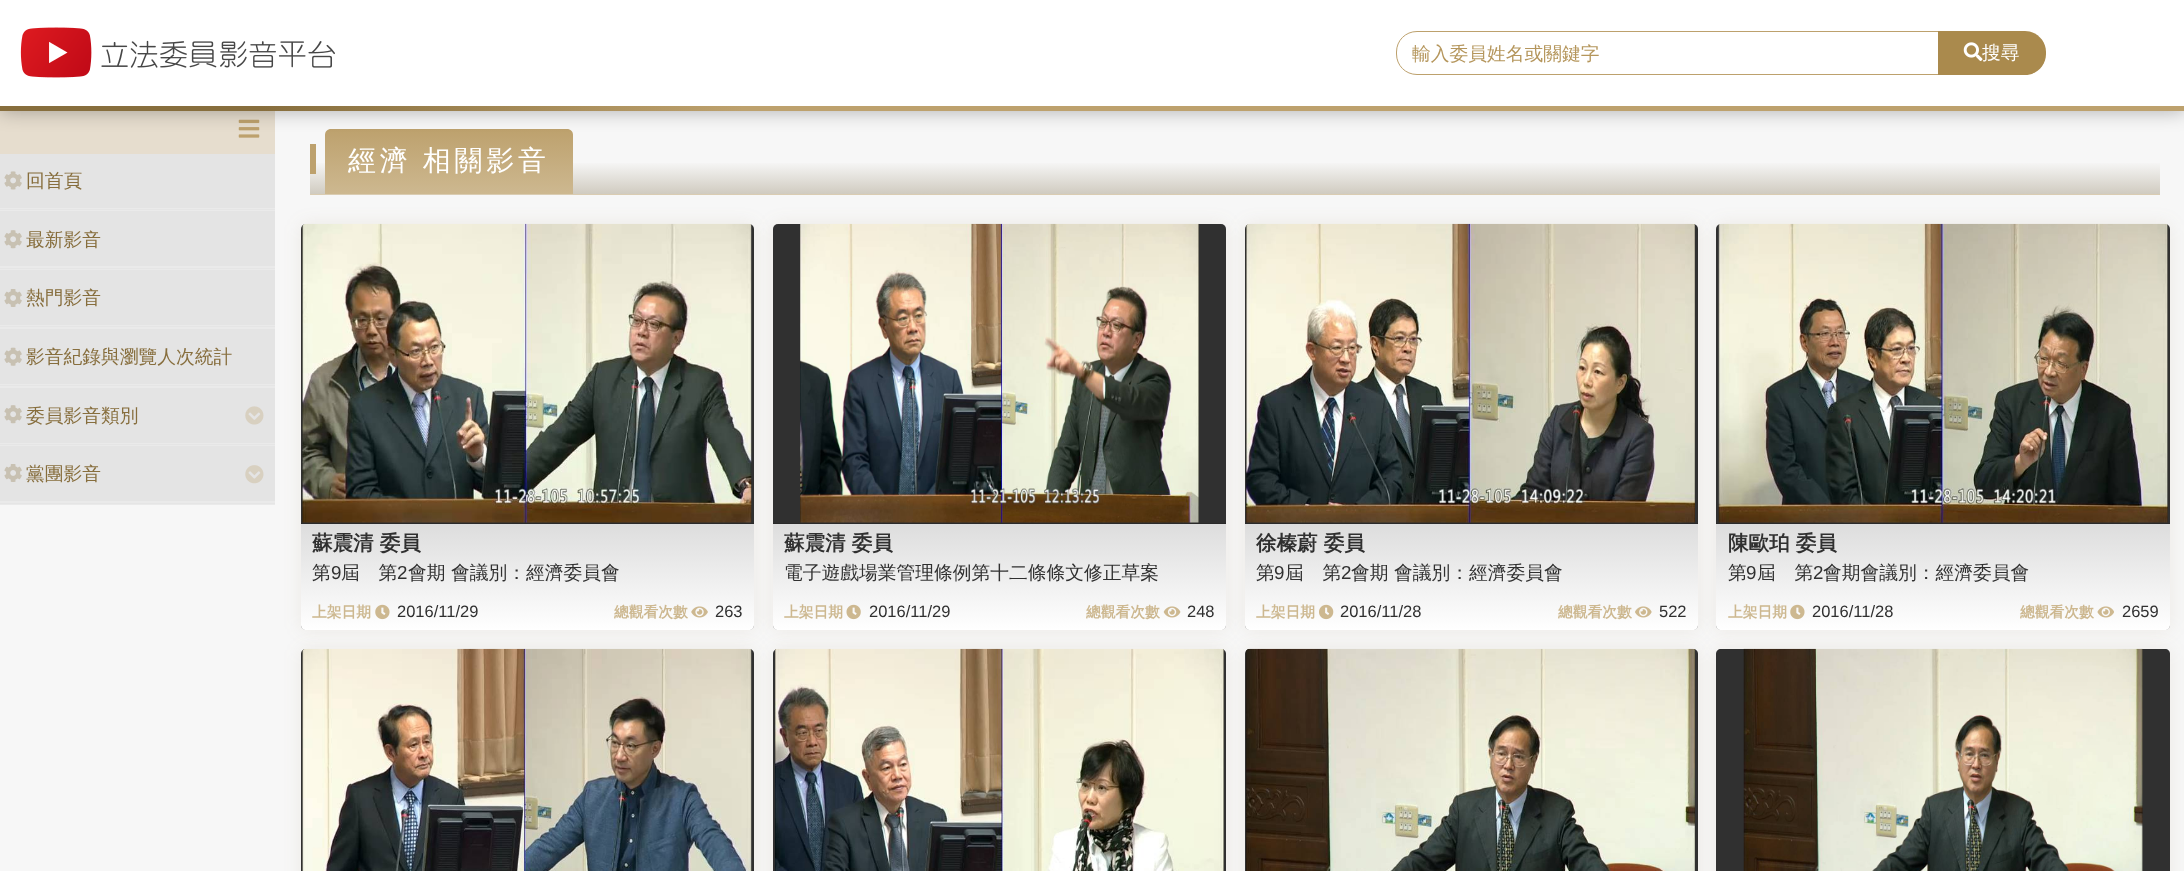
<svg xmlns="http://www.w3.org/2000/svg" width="2184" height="871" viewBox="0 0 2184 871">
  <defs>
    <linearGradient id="g1" gradientUnits="userSpaceOnUse" x1="1235" y1="129" x2="1235" y2="194"><stop offset="0.5" stop-color="#f7f7f7"/><stop offset="1" stop-color="#d0cbc0"/></linearGradient>
    <linearGradient id="g2" gradientUnits="userSpaceOnUse" x1="449" y1="129" x2="449" y2="194"><stop offset="0" stop-color="#bda16d"/><stop offset="1" stop-color="#cdb890"/></linearGradient>
    <linearGradient id="g3" gradientUnits="userSpaceOnUse" x1="0" y1="56" x2="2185" y2="56"><stop offset="0.12" stop-color="#876e3d"/><stop offset="0.34" stop-color="#bda16d"/></linearGradient>
    <linearGradient id="g4" gradientUnits="userSpaceOnUse" x1="528" y1="524" x2="528" y2="630"><stop offset="0" stop-color="#ddd"/><stop offset="1" stop-color="#fff"/></linearGradient>
    <linearGradient id="g5" gradientUnits="userSpaceOnUse" x1="999" y1="524" x2="999" y2="630"><stop offset="0" stop-color="#ddd"/><stop offset="1" stop-color="#fff"/></linearGradient>
    <linearGradient id="g6" gradientUnits="userSpaceOnUse" x1="1471" y1="524" x2="1471" y2="630"><stop offset="0" stop-color="#ddd"/><stop offset="1" stop-color="#fff"/></linearGradient>
    <linearGradient id="g7" gradientUnits="userSpaceOnUse" x1="1943" y1="524" x2="1943" y2="630"><stop offset="0" stop-color="#ddd"/><stop offset="1" stop-color="#fff"/></linearGradient>
  </defs>
  <rect width="100%" height="100%" fill="#f7f7f7"/>
  <path d="M0 111h275v43H0z" fill="#e6ddce"/>
  <image x="238" y="119" width="22" height="19" href="img/3.png"/>
  <path d="M310 163h1850v31H310z" fill="url(#g1)"/>
  <path d="M331 129H567C570.5 129 573 131.5 573 135V194H325V135C325 131.5 327.5 129 331 129Z" fill="url(#g2)"/>
  <path d="M0 0h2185v111H0z" fill="#0000004d" filter="blur(9.5px)"/>
  <path d="M0 106h2184v5H0z" fill="url(#g3)"/>
  <path d="M0 0h2184v106H0z" fill="#fff"/>
  <image x="20" y="27" width="315" height="51" href="img/1.png"/>
  <path d="M1417 31.5H1938.5V74.5H1417C1405.5 74.5 1396.5 65.5 1396.5 54V52C1396.5 40.5 1405.5 31.5 1417 31.5Z" fill="none" stroke="#bda16d"/>
  <path d="M1938 31H2025C2036.5 31 2046 40.5 2046 52V54C2046 65.5 2036.5 75 2025 75H1938Z" fill="#aa8a4d"/>
  <image x="1963" y="42" width="20" height="19" href="img/2.png"/>
  <path d="M0 208h275v297H0z" fill="#eaeaea"/>
  <path d="M0 209h275v1H0z" fill="#e5e5e5"/>
  <path d="M0 154h275v54H0z" fill="#e4e4e4"/>
  <image x="4" y="171" width="18" height="19" href="img/4.png"/>
  <path d="M0 268h275v1H0z" fill="#e5e5e5"/>
  <path d="M0 211h275v55H0z" fill="#e4e4e4"/>
  <image x="4" y="230" width="18" height="19" href="img/5.png"/>
  <path d="M0 326h275v1H0z" fill="#e5e5e5"/>
  <path d="M0 270h275v55H0z" fill="#e4e4e4"/>
  <image x="4" y="289" width="18" height="18" href="img/6.png"/>
  <path d="M0 385h275v1H0z" fill="#e5e5e5"/>
  <path d="M0 329h275v55H0z" fill="#e4e4e4"/>
  <image x="4" y="347" width="18" height="19" href="img/7.png"/>
  <path d="M0 444h275v1H0z" fill="#e5e5e5"/>
  <path d="M0 388h275v55H0z" fill="#e4e4e4"/>
  <image x="4" y="405" width="18" height="19" href="img/5.png"/>
  <image x="245" y="406" width="19" height="19" href="img/8.png"/>
  <path d="M0 503h275v1H0z" fill="#e5e5e5"/>
  <path d="M0 446h275v55H0z" fill="#e4e4e4"/>
  <image x="4" y="464" width="18" height="18" href="img/6.png"/>
  <image x="245" y="465" width="19" height="19" href="img/9.png"/>
  <path d="M310 194h1850v1H310z" fill="#daccb2"/>
  <path d="M310 144h6v30H310z" fill="#bda16d"/>
  <rect x="301" y="224" width="453" height="406" rx="5" fill="#876e3d1a" filter="blur(9px)"/>
  <rect x="301" y="224" width="453" height="406" rx="5" fill="#303030"/>
  <image x="302" y="223" width="450" height="300" href="img/10.png"/>
  <path d="M301 523h453v1H301z" fill="#2a2a2a"/>
  <path d="M301 524H754V625C754 628 752 630 749 630H306C303 630 301 628 301 625Z" fill="url(#g4)"/>
  <image x="375" y="604" width="15" height="16" href="img/11.png"/>
  <image x="691" y="606" width="17" height="12" href="img/12.png"/>
  <rect x="773" y="224" width="453" height="406" rx="5" fill="#876e3d1a" filter="blur(9px)"/>
  <rect x="773" y="224" width="453" height="406" rx="5" fill="#303030"/>
  <image x="800" y="223" width="399" height="300" href="img/13.png"/>
  <path d="M773 523h453v1H773z" fill="#2a2a2a"/>
  <path d="M773 524H1226V625C1226 628 1224 630 1221 630H778C775 630 773 628 773 625Z" fill="url(#g5)"/>
  <image x="846" y="604" width="15" height="16" href="img/14.png"/>
  <image x="1163" y="606" width="18" height="12" href="img/15.png"/>
  <rect x="1245" y="224" width="453" height="406" rx="5" fill="#876e3d1a" filter="blur(9px)"/>
  <rect x="1245" y="224" width="453" height="406" rx="5" fill="#303030"/>
  <image x="1246" y="223" width="449" height="300" href="img/16.png"/>
  <path d="M1245 523h453v1H1245z" fill="#2a2a2a"/>
  <path d="M1245 524H1698V625C1698 628 1696 630 1693 630H1250C1247 630 1245 628 1245 625Z" fill="url(#g6)"/>
  <image x="1319" y="604" width="15" height="16" href="img/17.png"/>
  <image x="1635" y="606" width="17" height="12" href="img/18.png"/>
  <rect x="1716" y="224" width="454" height="406" rx="5" fill="#876e3d1a" filter="blur(9px)"/>
  <rect x="1716" y="224" width="454" height="406" rx="5" fill="#303030"/>
  <image x="1718" y="223" width="450" height="300" href="img/19.png"/>
  <path d="M1716 523h454v1H1716z" fill="#2a2a2a"/>
  <path d="M1716 524H2170V625C2170 628 2168 630 2165 630H1721C1718 630 1716 628 1716 625Z" fill="url(#g7)"/>
  <image x="1790" y="604" width="15" height="16" href="img/11.png"/>
  <image x="2097" y="606" width="17" height="12" href="img/20.png"/>
  <rect x="301" y="649" width="453" height="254" rx="5" fill="#876e3d1a" filter="blur(9px)"/>
  <path d="M306 649H749C752 649 754 651 754 654V871H301V654C301 651 303 649 306 649Z" fill="#303030"/>
  <image x="302" y="648" width="450" height="223" href="img/21.png"/>
  <rect x="773" y="649" width="453" height="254" rx="5" fill="#876e3d1a" filter="blur(9px)"/>
  <path d="M778 649H1221C1224 649 1226 651 1226 654V871H773V654C773 651 775 649 778 649Z" fill="#303030"/>
  <image x="775" y="648" width="449" height="223" href="img/22.png"/>
  <rect x="1245" y="649" width="453" height="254" rx="5" fill="#876e3d1a" filter="blur(9px)"/>
  <path d="M1250 649H1693C1696 649 1698 651 1698 654V871H1245V654C1245 651 1247 649 1250 649Z" fill="#303030"/>
  <image x="1246" y="648" width="449" height="223" href="img/23.png"/>
  <rect x="1716" y="649" width="454" height="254" rx="5" fill="#876e3d1a" filter="blur(9px)"/>
  <path d="M1721 649H2165C2168 649 2170 651 2170 654V871H1716V654C1716 651 1718 649 1721 649Z" fill="#303030"/>
  <image x="1743" y="648" width="400" height="223" href="img/24.png"/>
  <text x="1412" y="60" font-family="WenQuanYi Zen Hei" font-size="18.75" font-weight="500" fill="#b5965c">輸入委員姓名或關鍵字</text>
  <text x="1982" y="59" font-family="WenQuanYi Zen Hei" font-size="18.75" font-weight="500" fill="#fff">搜尋</text>
  <g font-family="WenQuanYi Zen Hei" font-size="18.75" font-weight="500" fill="#876e3d">
    <text x="26" y="187">回首頁</text>
    <text x="26" y="246">最新影音</text>
    <text x="26" y="304">熱門影音</text>
    <text x="26" y="363">影音紀錄與瀏覽人次統計</text>
    <text x="26" y="422">委員影音類別</text>
    <text x="26" y="480">黨團影音</text>
  </g>
  <text x="348" y="170" word-spacing="-1" font-family="WenQuanYi Zen Hei" font-size="28" font-weight="500" letter-spacing="3.75" fill="#fff">經濟 相關影音</text>
  <text x="312" y="550" font-family="WenQuanYi Zen Hei" font-size="20.5" font-weight="bold" fill="#303030">蘇震清 委員</text>
  <text x="312" y="579" font-family="WenQuanYi Zen Hei" font-size="18.75" font-weight="500" fill="#303030">第</text>
  <text x="331" y="579" font-family="Liberation Sans" font-size="18.75" fill="#303030">9</text>
  <text x="341" y="579" font-family="WenQuanYi Zen Hei" font-size="18.75" font-weight="500" fill="#303030">屆　第</text>
  <text x="397" y="579" font-family="Liberation Sans" font-size="18.75" fill="#303030">2</text>
  <text x="408" y="579" font-family="WenQuanYi Zen Hei" font-size="18.75" font-weight="500" fill="#303030">會期 會議別：經濟委員會</text>
  <text x="312" y="617" font-family="WenQuanYi Zen Hei" font-size="14.75" font-weight="bold" fill="#cdb890">上架日期</text>
  <text x="397" y="617" font-family="Liberation Sans" font-size="16.5" fill="#303030">2016/11/29</text>
  <text x="614" y="617" font-family="WenQuanYi Zen Hei" font-size="14.75" font-weight="bold" fill="#cdb890">總觀看次數</text>
  <text x="715" y="617" font-family="Liberation Sans" font-size="16.5" fill="#303030">263</text>
  <text x="784" y="550" font-family="WenQuanYi Zen Hei" font-size="20.5" font-weight="bold" fill="#303030">蘇震清 委員</text>
  <text x="784" y="579" font-family="WenQuanYi Zen Hei" font-size="18.75" font-weight="500" fill="#303030">電子遊戲場業管理條例第十二條條文修正草案</text>
  <text x="784" y="617" font-family="WenQuanYi Zen Hei" font-size="14.75" font-weight="bold" fill="#cdb890">上架日期</text>
  <text x="869" y="617" font-family="Liberation Sans" font-size="16.5" fill="#303030">2016/11/29</text>
  <text x="1086" y="617" font-family="WenQuanYi Zen Hei" font-size="14.75" font-weight="bold" fill="#cdb890">總觀看次數</text>
  <text x="1187" y="617" font-family="Liberation Sans" font-size="16.5" fill="#303030">248</text>
  <text x="1256" y="550" font-family="WenQuanYi Zen Hei" font-size="20.5" font-weight="bold" fill="#303030">徐榛蔚 委員</text>
  <text x="1256" y="579" font-family="WenQuanYi Zen Hei" font-size="18.75" font-weight="500" fill="#303030">第</text>
  <text x="1274" y="579" font-family="Liberation Sans" font-size="18.75" fill="#303030">9</text>
  <text x="1285" y="579" font-family="WenQuanYi Zen Hei" font-size="18.75" font-weight="500" fill="#303030">屆　第</text>
  <text x="1341" y="579" font-family="Liberation Sans" font-size="18.75" fill="#303030">2</text>
  <text x="1351" y="579" font-family="WenQuanYi Zen Hei" font-size="18.75" font-weight="500" fill="#303030">會期 會議別：經濟委員會</text>
  <text x="1256" y="617" font-family="WenQuanYi Zen Hei" font-size="14.75" font-weight="bold" fill="#cdb890">上架日期</text>
  <text x="1340" y="617" font-family="Liberation Sans" font-size="16.5" fill="#303030">2016/11/28</text>
  <text x="1558" y="617" font-family="WenQuanYi Zen Hei" font-size="14.75" font-weight="bold" fill="#cdb890">總觀看次數</text>
  <text x="1659" y="617" font-family="Liberation Sans" font-size="16.5" fill="#303030">522</text>
  <text x="1728" y="550" font-family="WenQuanYi Zen Hei" font-size="20.5" font-weight="bold" fill="#303030">陳歐珀 委員</text>
  <text x="1728" y="579" font-family="WenQuanYi Zen Hei" font-size="18.75" font-weight="500" fill="#303030">第</text>
  <text x="1746" y="579" font-family="Liberation Sans" font-size="18.75" fill="#303030">9</text>
  <text x="1757" y="579" font-family="WenQuanYi Zen Hei" font-size="18.75" font-weight="500" fill="#303030">屆　第</text>
  <text x="1813" y="579" font-family="Liberation Sans" font-size="18.75" fill="#303030">2</text>
  <text x="1823" y="579" font-family="WenQuanYi Zen Hei" font-size="18.75" font-weight="500" fill="#303030">會期會議別：經濟委員會</text>
  <text x="1728" y="617" font-family="WenQuanYi Zen Hei" font-size="14.75" font-weight="bold" fill="#cdb890">上架日期</text>
  <text x="1812" y="617" font-family="Liberation Sans" font-size="16.5" fill="#303030">2016/11/28</text>
  <text x="2020" y="617" font-family="WenQuanYi Zen Hei" font-size="14.75" font-weight="bold" fill="#cdb890">總觀看次數</text>
  <text x="2122" y="617" font-family="Liberation Sans" font-size="16.5" fill="#303030">2659</text>
</svg>
